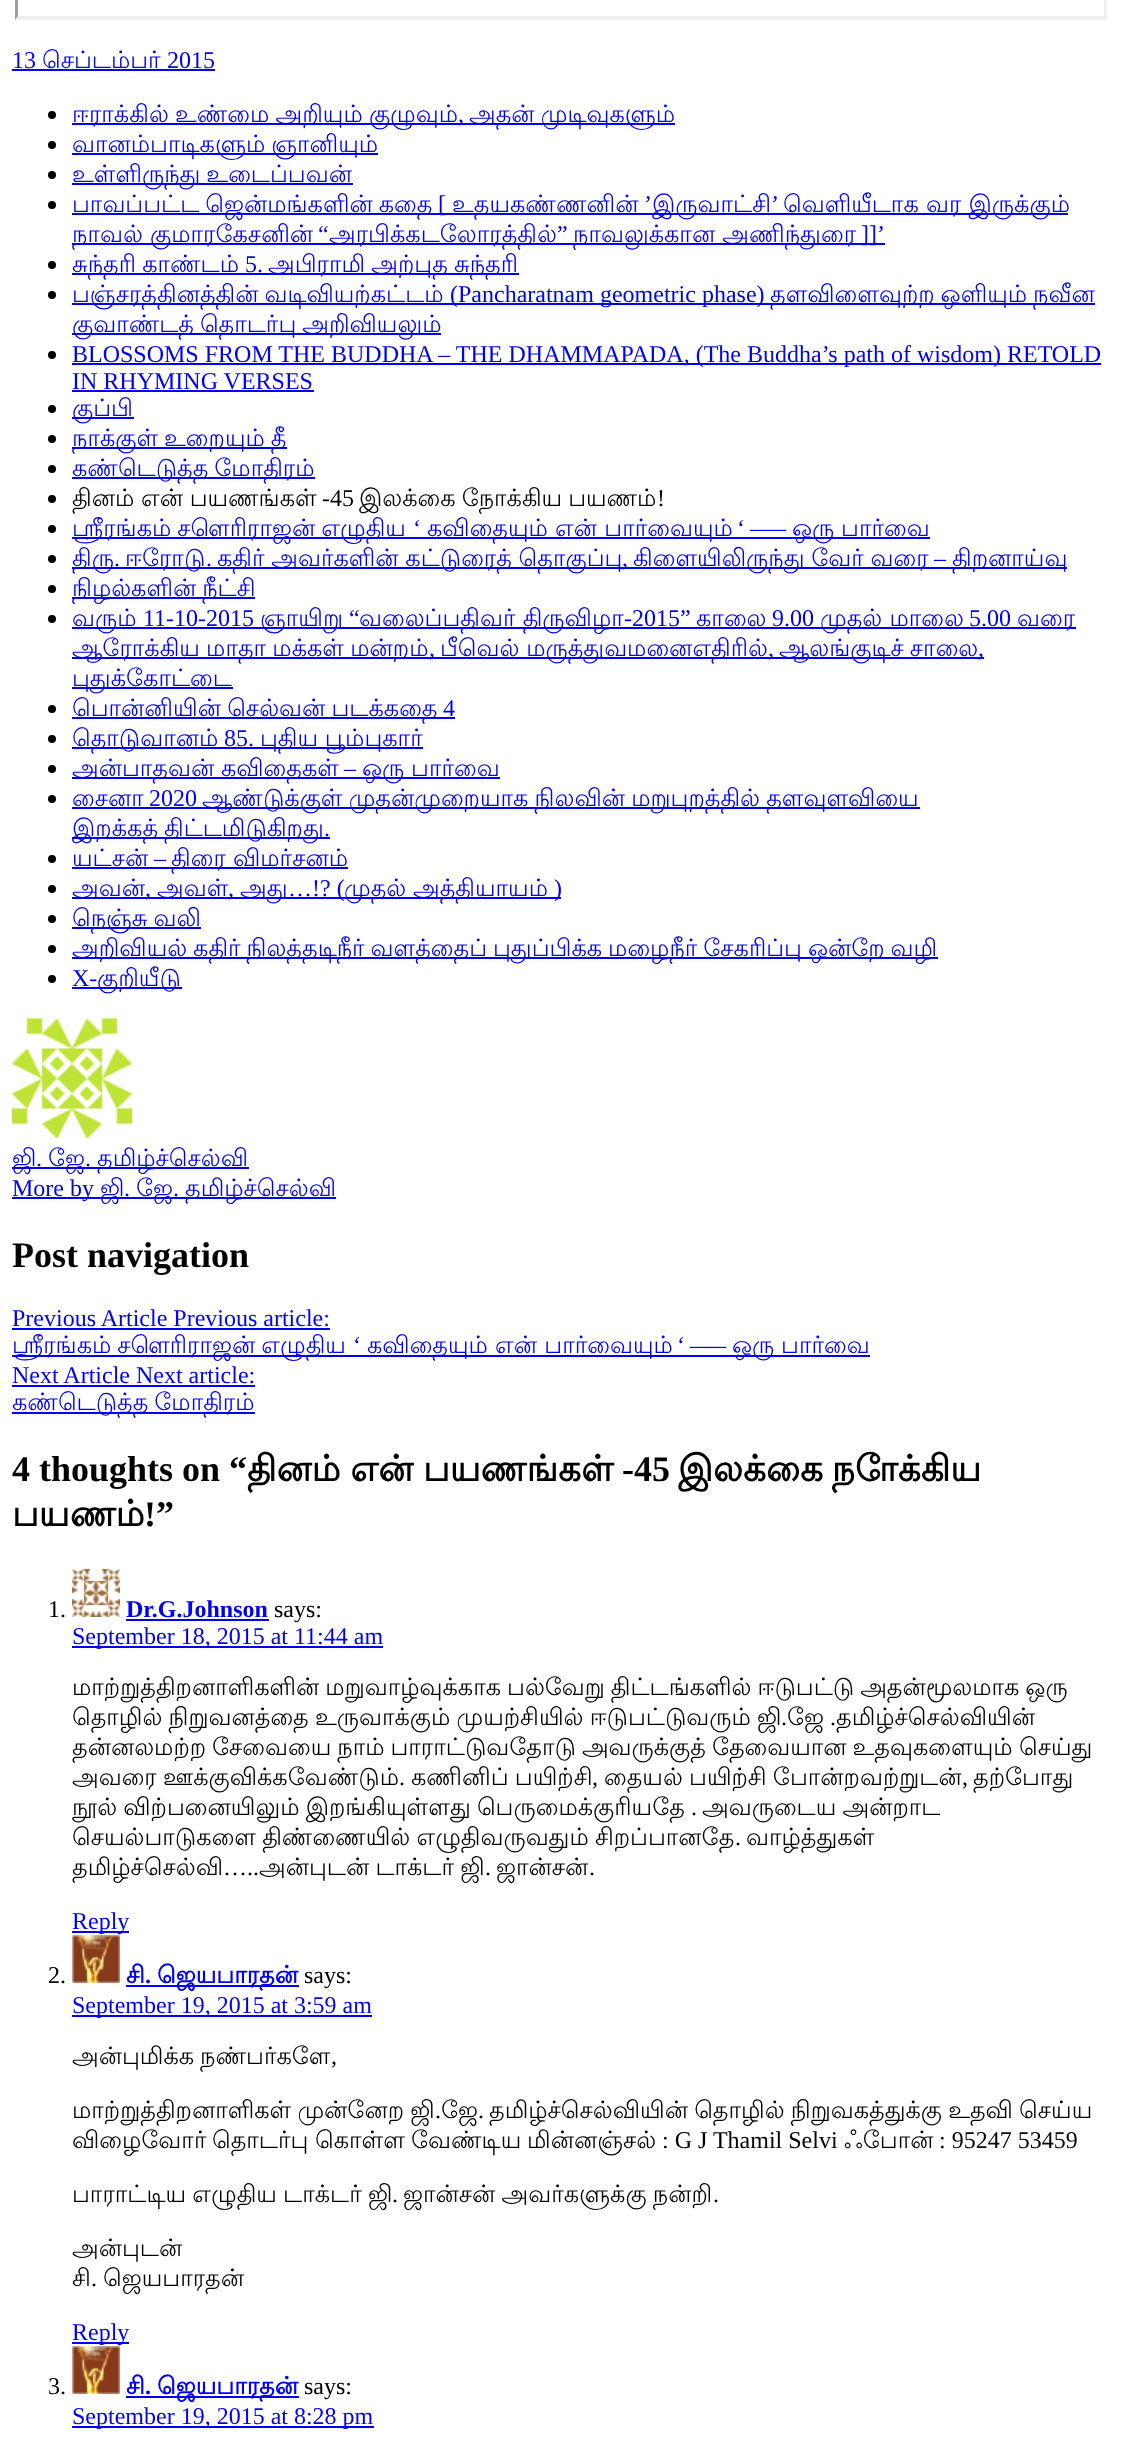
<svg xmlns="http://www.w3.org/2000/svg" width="1121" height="2455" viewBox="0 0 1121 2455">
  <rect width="100%" height="100%" fill="#fff"/>
  <path d="M1107-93V20L1104 16V-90Z" fill="#efefef"/>
  <path d="M1107 20H15L18 16H1104Z" fill="#efefef"/>
  <path d="M15 20V-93L18-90V16Z" fill="#9f9f9f"/>
  <path d="M12 69h203v2H12z" fill="#00e"/>
  <circle cx="52" cy="115" r="4" fill="#000"/>
  <path d="M72 123h603v2H72z" fill="#00e"/>
  <circle cx="52" cy="145" r="4" fill="#000"/>
  <path d="M72 153h306v2H72z" fill="#00e"/>
  <circle cx="52" cy="175" r="4" fill="#000"/>
  <path d="M72 183h281v2H72z" fill="#00e"/>
  <path d="M72 213h996v2H72z" fill="#00e"/>
  <circle cx="52" cy="205" r="4" fill="#000"/>
  <path d="M72 243h813v2H72z" fill="#00e"/>
  <circle cx="52" cy="265" r="4" fill="#000"/>
  <path d="M72 273h447v2H72z" fill="#00e"/>
  <circle cx="52" cy="295" r="4" fill="#000"/>
  <path d="M72 303h1023v2H72z" fill="#00e"/>
  <path d="M72 333h369v2H72z" fill="#00e"/>
  <circle cx="52" cy="355" r="4" fill="#000"/>
  <path d="M72 363h1029v2H72z" fill="#00e"/>
  <path d="M72 390h242v2H72z" fill="#00e"/>
  <circle cx="52" cy="409" r="4" fill="#000"/>
  <path d="M72 417h62v2H72z" fill="#00e"/>
  <circle cx="52" cy="439" r="4" fill="#000"/>
  <path d="M72 447h215v2H72z" fill="#00e"/>
  <circle cx="52" cy="469" r="4" fill="#000"/>
  <path d="M72 477h243v2H72z" fill="#00e"/>
  <circle cx="52" cy="499" r="4" fill="#000"/>
  <path d="M72 537h858v2H72z" fill="#00e"/>
  <circle cx="52" cy="529" r="4" fill="#000"/>
  <circle cx="52" cy="559" r="4" fill="#000"/>
  <path d="M72 567h995v2H72z" fill="#00e"/>
  <circle cx="52" cy="589" r="4" fill="#000"/>
  <path d="M72 597h183v2H72z" fill="#00e"/>
  <circle cx="52" cy="619" r="4" fill="#000"/>
  <path d="M72 627h1004v2H72z" fill="#00e"/>
  <path d="M72 657h912v2H72z" fill="#00e"/>
  <path d="M72 687h161v2H72z" fill="#00e"/>
  <circle cx="52" cy="709" r="4" fill="#000"/>
  <path d="M72 717h383v2H72z" fill="#00e"/>
  <circle cx="52" cy="739" r="4" fill="#000"/>
  <path d="M72 747h351v2H72z" fill="#00e"/>
  <circle cx="52" cy="769" r="4" fill="#000"/>
  <path d="M72 777h428v2H72z" fill="#00e"/>
  <circle cx="52" cy="799" r="4" fill="#000"/>
  <path d="M72 807h848v2H72z" fill="#00e"/>
  <path d="M72 837h258v2H72z" fill="#00e"/>
  <circle cx="52" cy="859" r="4" fill="#000"/>
  <path d="M72 867h276v2H72z" fill="#00e"/>
  <circle cx="52" cy="889" r="4" fill="#000"/>
  <path d="M72 897h489v2H72z" fill="#00e"/>
  <circle cx="52" cy="919" r="4" fill="#000"/>
  <path d="M72 927h129v2H72z" fill="#00e"/>
  <circle cx="52" cy="949" r="4" fill="#000"/>
  <path d="M72 957h866v2H72z" fill="#00e"/>
  <circle cx="52" cy="979" r="4" fill="#000"/>
  <path d="M72 987h110v2H72z" fill="#00e"/>
  <image x="12" y="1018" width="120" height="121" href="img/1.png"/>
  <path d="M12 1167h237v2H12z" fill="#00e"/>
  <path d="M12 1197h324v2H12z" fill="#00e"/>
  <path d="M12 1328h318v2H12z" fill="#00e"/>
  <path d="M12 1355h858v2H12z" fill="#00e"/>
  <path d="M12 1385h243v2H12z" fill="#00e"/>
  <path d="M12 1412h243v2H12z" fill="#00e"/>
  <image x="72" y="1569" width="48" height="48" href="img/2.png"/>
  <path d="M126 1619h143v2H126z" fill="#00e"/>
  <path d="M72 1646h311v2H72z" fill="#00e"/>
  <path d="M72 1931h57v2H72z" fill="#00e"/>
  <image x="72" y="1935" width="48" height="48" href="img/3.png"/>
  <path d="M126 1985h173v2H126z" fill="#00e"/>
  <path d="M72 2015h300v2H72z" fill="#00e"/>
  <path d="M72 2342h57v2H72z" fill="#00e"/>
  <image x="72" y="2346" width="48" height="48" href="img/3.png"/>
  <path d="M126 2396h173v2H126z" fill="#00e"/>
  <path d="M72 2426h302v2H72z" fill="#00e"/>
  <text x="12" y="68" font-family="Liberation Serif" font-size="24" fill="#00e">13</text>
  <text x="42" y="68" font-family="Lohit Tamil" font-size="24" fill="#00e">செப்டம்பர்</text>
  <text x="167" y="68" font-family="Liberation Serif" font-size="24" fill="#00e">2015</text>
  <g font-family="Lohit Tamil" font-size="24" fill="#00e">
    <text x="72" y="122" word-spacing="-1">ஈராக்கில் உண்மை அறியும் குழுவும்</text>
    <text x="469" y="122" word-spacing="-1">அதன் முடிவுகளும்</text>
  </g>
  <text x="458" y="122" font-family="Liberation Serif" font-size="24" fill="#00e">,</text>
  <g font-family="Lohit Tamil" font-size="24" fill="#00e">
    <text x="72" y="152" word-spacing="-1.25">வானம்பாடிகளும் ஞானியும்</text>
    <text x="72" y="182" word-spacing="-1.25">உள்ளிருந்து உடைப்பவன்</text>
    <text x="72" y="212" word-spacing="-1.25">பாவப்பட்ட ஜென்மங்களின் கதை</text>
  </g>
  <text x="438" y="212" font-family="Liberation Serif" font-size="24" fill="#00e">[</text>
  <text x="452" y="212" font-family="Lohit Tamil" font-size="24" fill="#00e">உதயகண்ணனின்</text>
  <text x="644" y="212" font-family="Liberation Serif" font-size="24" fill="#00e">’</text>
  <text x="652" y="212" font-family="Lohit Tamil" font-size="24" fill="#00e">இருவாட்சி</text>
  <text x="771" y="212" font-family="Liberation Serif" font-size="24" fill="#00e">’</text>
  <g font-family="Lohit Tamil" font-size="24" fill="#00e">
    <text x="783" y="212">வெளியீடாக வர இருக்கும்</text>
    <text x="72" y="242">நாவல் குமாரகேசனின்</text>
  </g>
  <text x="318" y="242" font-family="Liberation Serif" font-size="24" fill="#00e">“</text>
  <text x="329" y="242" font-family="Lohit Tamil" font-size="24" fill="#00e">அரபிக்கடலோரத்தில்</text>
  <text x="557" y="242" font-family="Liberation Serif" font-size="24" fill="#00e">”</text>
  <text x="573" y="242" font-family="Lohit Tamil" font-size="24" fill="#00e">நாவலுக்கான அணிந்துரை</text>
  <text x="861" y="242" font-family="Liberation Serif" font-size="24" fill="#00e">]]’</text>
  <text x="72" y="272" word-spacing="-1" font-family="Lohit Tamil" font-size="24" fill="#00e">சுந்தரி காண்டம்</text>
  <text x="245" y="272" font-family="Liberation Serif" font-size="24" fill="#00e">5.</text>
  <g font-family="Lohit Tamil" font-size="24" fill="#00e">
    <text x="268" y="272" word-spacing="-1">அபிராமி அற்புத சுந்தரி</text>
    <text x="72" y="302" word-spacing="-1.25">பஞ்சரத்தினத்தின் வடிவியற்கட்டம்</text>
  </g>
  <text x="450" y="302" font-family="Liberation Serif" font-size="24" fill="#00e">(Pancharatnam geometric phase)</text>
  <g font-family="Lohit Tamil" font-size="24" fill="#00e">
    <text x="770" y="302" word-spacing="-1.25">தளவிளைவுற்ற ஒளியும் நவீன</text>
    <text x="72" y="332" word-spacing="-1.25">குவாண்டத் தொடர்பு அறிவியலும்</text>
  </g>
  <g font-family="Liberation Serif" font-size="24" fill="#00e">
    <text x="72" y="362">BLOSSOMS FROM THE BUDDHA – THE DHAMMAPADA, (The Buddha’s path of wisdom) RETOLD</text>
    <text x="72" y="389">IN RHYMING VERSES</text>
  </g>
  <g font-family="Lohit Tamil" font-size="24" fill="#00e">
    <text x="72" y="416">குப்பி</text>
    <text x="72" y="446" word-spacing="-1.25">நாக்குள் உறையும் தீ</text>
    <text x="72" y="476" word-spacing="-1.25">கண்டெடுத்த மோதிரம்</text>
  </g>
  <text x="72" y="506" word-spacing="-0.5" font-family="Lohit Tamil" font-size="24" fill="#000">தினம் என் பயணங்கள்</text>
  <text x="322" y="506" font-family="Liberation Serif" font-size="24" fill="#000">-45</text>
  <text x="359" y="506" word-spacing="-1.25" font-family="Lohit Tamil" font-size="24" fill="#000">இலக்கை நோக்கிய பயணம்</text>
  <text x="657" y="506" font-family="Liberation Serif" font-size="24" fill="#000">!</text>
  <text x="72" y="536" word-spacing="-1.25" font-family="Lohit Tamil" font-size="24" fill="#00e">ஸ்ரீரங்கம் சௌரிராஜன் எழுதிய</text>
  <text x="413" y="536" font-family="Liberation Serif" font-size="24" fill="#00e">‘</text>
  <text x="427" y="536" font-family="Lohit Tamil" font-size="24" fill="#00e">கவிதையும் என் பார்வையும்</text>
  <text x="737" y="536" font-family="Liberation Serif" font-size="24" fill="#00e">‘</text>
  <text x="792" y="536" word-spacing="-0.5" font-family="Lohit Tamil" font-size="24" fill="#00e">ஒரு பார்வை</text>
  <text x="750" y="536" font-family="Liberation Serif" font-size="24" fill="#00e">—–</text>
  <g font-family="Lohit Tamil" font-size="24" fill="#00e">
    <text x="72" y="566">திரு</text>
    <text x="125" y="566">ஈரோடு</text>
    <text x="217" y="566" word-spacing="-0.5">கதிர் அவர்களின் கட்டுரைத் தொகுப்பு</text>
    <text x="633" y="566" word-spacing="-0.5">கிளையிலிருந்து வேர் வரை</text>
  </g>
  <text x="934" y="566" font-family="Liberation Serif" font-size="24" fill="#00e">–</text>
  <text x="952" y="566" font-family="Lohit Tamil" font-size="24" fill="#00e">திறனாய்வு</text>
  <g font-family="Liberation Serif" font-size="24" fill="#00e">
    <text x="114" y="566">.</text>
    <text x="206" y="566">.</text>
    <text x="622" y="566">,</text>
  </g>
  <g font-family="Lohit Tamil" font-size="24" fill="#00e">
    <text x="72" y="596" word-spacing="-1.25">நிழல்களின் நீட்சி</text>
    <text x="72" y="626">வரும்</text>
  </g>
  <text x="143" y="626" font-family="Liberation Serif" font-size="24" fill="#00e">11-10-2015</text>
  <text x="260" y="626" font-family="Lohit Tamil" font-size="24" fill="#00e">ஞாயிறு</text>
  <text x="349" y="626" font-family="Liberation Serif" font-size="24" fill="#00e">“</text>
  <text x="359" y="626" font-family="Lohit Tamil" font-size="24" fill="#00e">வலைப்பதிவர் திருவிழா</text>
  <text x="624" y="626" font-family="Liberation Serif" font-size="24" fill="#00e">-2015”</text>
  <text x="696" y="626" font-family="Lohit Tamil" font-size="24" fill="#00e">காலை</text>
  <text x="772" y="626" font-family="Liberation Serif" font-size="24" fill="#00e">9.00</text>
  <text x="820" y="626" font-family="Lohit Tamil" font-size="24" fill="#00e">முதல் மாலை</text>
  <text x="969" y="626" font-family="Liberation Serif" font-size="24" fill="#00e">5.00</text>
  <g font-family="Lohit Tamil" font-size="24" fill="#00e">
    <text x="1017" y="626">வரை</text>
    <text x="72" y="656" word-spacing="-1">ஆரோக்கிய மாதா மக்கள் மன்றம்</text>
  </g>
  <text x="429" y="656" font-family="Liberation Serif" font-size="24" fill="#00e">,</text>
  <text x="440" y="656" word-spacing="-0.5" font-family="Lohit Tamil" font-size="24" fill="#00e">பீவெல் மருத்துவமனைஎதிரில்</text>
  <text x="768" y="656" font-family="Liberation Serif" font-size="24" fill="#00e">,</text>
  <text x="779" y="656" word-spacing="-1.25" font-family="Lohit Tamil" font-size="24" fill="#00e">ஆலங்குடிச் சாலை</text>
  <text x="978" y="656" font-family="Liberation Serif" font-size="24" fill="#00e">,</text>
  <g font-family="Lohit Tamil" font-size="24" fill="#00e">
    <text x="72" y="686">புதுக்கோட்டை</text>
    <text x="72" y="716" word-spacing="-1">பொன்னியின் செல்வன் படக்கதை</text>
  </g>
  <text x="443" y="716" font-family="Liberation Serif" font-size="24" fill="#00e">4</text>
  <text x="72" y="746" font-family="Lohit Tamil" font-size="24" fill="#00e">தொடுவானம்</text>
  <text x="224" y="746" font-family="Liberation Serif" font-size="24" fill="#00e">85.</text>
  <g font-family="Lohit Tamil" font-size="24" fill="#00e">
    <text x="260" y="746" word-spacing="-0.5">புதிய பூம்புகார்</text>
    <text x="72" y="776" word-spacing="-0.5">அன்பாதவன் கவிதைகள்</text>
  </g>
  <text x="344" y="776" font-family="Liberation Serif" font-size="24" fill="#00e">–</text>
  <g font-family="Lohit Tamil" font-size="24" fill="#00e">
    <text x="362" y="776" word-spacing="-0.5">ஒரு பார்வை</text>
    <text x="72" y="806">சைனா</text>
  </g>
  <text x="149" y="806" font-family="Liberation Serif" font-size="24" fill="#00e">2020</text>
  <g font-family="Lohit Tamil" font-size="24" fill="#00e">
    <text x="202" y="806" word-spacing="-1">ஆண்டுக்குள் முதன்முறையாக நிலவின் மறுபுறத்தில் தளவுளவியை</text>
    <text x="72" y="836">இறக்கத்</text>
    <text x="164" y="836">திட்டமிடுகிறது</text>
  </g>
  <text x="324" y="836" font-family="Liberation Serif" font-size="24" fill="#00e">.</text>
  <text x="72" y="866" font-family="Lohit Tamil" font-size="24" fill="#00e">யட்சன்</text>
  <text x="154" y="866" font-family="Liberation Serif" font-size="24" fill="#00e">–</text>
  <g font-family="Lohit Tamil" font-size="24" fill="#00e">
    <text x="171" y="866">திரை விமர்சனம்</text>
    <text x="72" y="896">அவன்</text>
    <text x="157" y="896">அவள்</text>
    <text x="240" y="896">அது</text>
  </g>
  <text x="288" y="896" font-family="Liberation Serif" font-size="24" fill="#00e">…!? (</text>
  <g font-family="Lohit Tamil" font-size="24" fill="#00e">
    <text x="344" y="896">முதல்</text>
    <text x="413" y="896">அத்தியாயம்</text>
  </g>
  <g font-family="Liberation Serif" font-size="24" fill="#00e">
    <text x="554" y="896">)</text>
    <text x="145" y="896">,</text>
    <text x="228" y="896">,</text>
  </g>
  <g font-family="Lohit Tamil" font-size="24" fill="#00e">
    <text x="72" y="926" word-spacing="-1.25">நெஞ்சு வலி</text>
    <text x="72" y="956" word-spacing="-1.25">அறிவியல் கதிர் நிலத்தடிநீர் வளத்தைப் புதுப்பிக்க மழைநீர் சேகரிப்பு ஒன்றே வழி</text>
  </g>
  <text x="72" y="986" font-family="Liberation Serif" font-size="24" fill="#00e">X-</text>
  <g font-family="Lohit Tamil" font-size="24" fill="#00e">
    <text x="97" y="986">குறியீடு</text>
    <text x="12" y="1166">ஜி</text>
  </g>
  <text x="36" y="1166" font-family="Liberation Serif" font-size="24" fill="#00e">.</text>
  <text x="48" y="1166" font-family="Lohit Tamil" font-size="24" fill="#00e">ஜே</text>
  <text x="85" y="1166" font-family="Liberation Serif" font-size="24" fill="#00e">.</text>
  <text x="97" y="1166" font-family="Lohit Tamil" font-size="24" fill="#00e">தமிழ்ச்செல்வி</text>
  <text x="12" y="1196" font-family="Liberation Serif" font-size="24" fill="#00e">More by</text>
  <text x="100" y="1196" font-family="Lohit Tamil" font-size="24" fill="#00e">ஜி</text>
  <text x="124" y="1196" font-family="Liberation Serif" font-size="24" fill="#00e">.</text>
  <text x="136" y="1196" font-family="Lohit Tamil" font-size="24" fill="#00e">ஜே</text>
  <text x="173" y="1196" font-family="Liberation Serif" font-size="24" fill="#00e">.</text>
  <text x="185" y="1196" font-family="Lohit Tamil" font-size="24" fill="#00e">தமிழ்ச்செல்வி</text>
  <text x="12" y="1267" font-family="Liberation Serif" font-size="36" font-weight="bold" fill="#000">Post navigation</text>
  <text x="12" y="1326" font-family="Liberation Serif" font-size="24" fill="#00e">Previous Article Previous article:</text>
  <text x="12" y="1353" word-spacing="-1.25" font-family="Lohit Tamil" font-size="24" fill="#00e">ஸ்ரீரங்கம் சௌரிராஜன் எழுதிய</text>
  <text x="353" y="1353" font-family="Liberation Serif" font-size="24" fill="#00e">‘</text>
  <text x="367" y="1353" font-family="Lohit Tamil" font-size="24" fill="#00e">கவிதையும் என் பார்வையும்</text>
  <text x="677" y="1353" font-family="Liberation Serif" font-size="24" fill="#00e">‘</text>
  <text x="732" y="1353" word-spacing="-0.5" font-family="Lohit Tamil" font-size="24" fill="#00e">ஒரு பார்வை</text>
  <g font-family="Liberation Serif" font-size="24" fill="#00e">
    <text x="690" y="1353">—–</text>
    <text x="12" y="1383">Next Article Next article:</text>
  </g>
  <text x="12" y="1410" word-spacing="-1.25" font-family="Lohit Tamil" font-size="24" fill="#00e">கண்டெடுத்த மோதிரம்</text>
  <text x="12" y="1481" font-family="Liberation Serif" font-size="36" font-weight="bold" fill="#000">4 thoughts on “</text>
  <text x="247" y="1481" word-spacing="-1" font-family="Lohit Tamil" font-size="36" font-weight="bold" fill="#000">தினம் என் பயணங்கள்</text>
  <text x="622" y="1481" font-family="Liberation Serif" font-size="36" font-weight="bold" fill="#000">-45</text>
  <g font-family="Lohit Tamil" font-size="36" font-weight="bold" fill="#000">
    <text x="678" y="1481" word-spacing="-2">இலக்கை நோக்கிய</text>
    <text x="12" y="1526">பயணம்</text>
  </g>
  <text x="144" y="1526" font-family="Liberation Serif" font-size="36" font-weight="bold" fill="#000">!”</text>
  <text x="48" y="1617" font-family="Liberation Serif" font-size="24" fill="#000">1.</text>
  <text x="126" y="1617" font-family="Liberation Serif" font-size="24" font-weight="bold" fill="#00e">Dr.G.Johnson</text>
  <text x="274" y="1617" font-family="Liberation Serif" font-size="24" fill="#000">says:</text>
  <text x="72" y="1644" font-family="Liberation Serif" font-size="24" fill="#00e">September 18, 2015 at 11:44 am</text>
  <g font-family="Lohit Tamil" font-size="24" fill="#000">
    <text x="72" y="1695" word-spacing="-1.25">மாற்றுத்திறனாளிகளின் மறுவாழ்வுக்காக பல்வேறு திட்டங்களில் ஈடுபட்டு அதன்மூலமாக ஒரு</text>
    <text x="72" y="1725" word-spacing="-1">தொழில் நிறுவனத்தை உருவாக்கும் முயற்சியில் ஈடுபட்டுவரும் ஜி</text>
  </g>
  <text x="781" y="1725" font-family="Liberation Serif" font-size="24" fill="#000">.</text>
  <text x="787" y="1725" font-family="Lohit Tamil" font-size="24" fill="#000">ஜே</text>
  <text x="830" y="1725" font-family="Liberation Serif" font-size="24" fill="#000">.</text>
  <g font-family="Lohit Tamil" font-size="24" fill="#000">
    <text x="836" y="1725">தமிழ்ச்செல்வியின்</text>
    <text x="72" y="1755" word-spacing="-1.25">தன்னலமற்ற சேவையை நாம் பாராட்டுவதோடு அவருக்குத் தேவையான உதவுகளையும்</text>
    <text x="1019" y="1755">செய்து</text>
    <text x="72" y="1785" word-spacing="-1">அவரை ஊக்குவிக்கவேண்டும்</text>
  </g>
  <text x="399" y="1785" font-family="Liberation Serif" font-size="24" fill="#000">.</text>
  <text x="411" y="1785" word-spacing="-1" font-family="Lohit Tamil" font-size="24" fill="#000">கணினிப் பயிற்சி</text>
  <text x="592" y="1785" font-family="Liberation Serif" font-size="24" fill="#000">,</text>
  <text x="604" y="1785" word-spacing="-1" font-family="Lohit Tamil" font-size="24" fill="#000">தையல் பயிற்சி போன்றவற்றுடன்</text>
  <text x="962" y="1785" font-family="Liberation Serif" font-size="24" fill="#000">,</text>
  <g font-family="Lohit Tamil" font-size="24" fill="#000">
    <text x="973" y="1785">தற்போது</text>
    <text x="72" y="1815" word-spacing="-1">நூல் விற்பனையிலும் இறங்கியுள்ளது பெருமைக்குரியதே</text>
  </g>
  <text x="691" y="1815" font-family="Liberation Serif" font-size="24" fill="#000">.</text>
  <g font-family="Lohit Tamil" font-size="24" fill="#000">
    <text x="702" y="1815" word-spacing="-1">அவருடைய அன்றாட</text>
    <text x="72" y="1845" word-spacing="-1">செயல்பாடுகளை திண்ணையில் எழுதிவருவதும் சிறப்பானதே</text>
  </g>
  <text x="735" y="1845" font-family="Liberation Serif" font-size="24" fill="#000">.</text>
  <g font-family="Lohit Tamil" font-size="24" fill="#000">
    <text x="746" y="1845">வாழ்த்துகள்</text>
    <text x="72" y="1875">தமிழ்ச்செல்வி</text>
  </g>
  <text x="223" y="1875" font-family="Liberation Serif" font-size="24" fill="#000">…..</text>
  <text x="259" y="1875" word-spacing="-1" font-family="Lohit Tamil" font-size="24" fill="#000">அன்புடன் டாக்டர் ஜி</text>
  <text x="485" y="1875" font-family="Liberation Serif" font-size="24" fill="#000">.</text>
  <text x="496" y="1875" font-family="Lohit Tamil" font-size="24" fill="#000">ஜான்சன்</text>
  <text x="589" y="1875" font-family="Liberation Serif" font-size="24" fill="#000">.</text>
  <text x="72" y="1929" font-family="Liberation Serif" font-size="24" fill="#00e">Reply</text>
  <text x="48" y="1983" font-family="Liberation Serif" font-size="24" fill="#000">2.</text>
  <text x="126" y="1983" font-family="Lohit Tamil" font-size="24" font-weight="bold" fill="#00e">சி</text>
  <text x="145" y="1983" font-family="Liberation Serif" font-size="24" font-weight="bold" fill="#00e">.</text>
  <text x="157" y="1983" font-family="Lohit Tamil" font-size="24" font-weight="bold" fill="#00e">ஜெயபாரதன்</text>
  <text x="304" y="1983" font-family="Liberation Serif" font-size="24" fill="#000">says:</text>
  <text x="72" y="2013" font-family="Liberation Serif" font-size="24" fill="#00e">September 19, 2015 at 3:59 am</text>
  <text x="72" y="2064" word-spacing="-1.25" font-family="Lohit Tamil" font-size="24" fill="#000">அன்புமிக்க நண்பர்களே</text>
  <text x="331" y="2064" font-family="Liberation Serif" font-size="24" fill="#000">,</text>
  <text x="72" y="2118" word-spacing="-1" font-family="Lohit Tamil" font-size="24" fill="#000">மாற்றுத்திறனாளிகள் முன்னேற ஜி</text>
  <text x="435" y="2118" font-family="Liberation Serif" font-size="24" fill="#000">.</text>
  <text x="441" y="2118" font-family="Lohit Tamil" font-size="24" fill="#000">ஜே</text>
  <text x="478" y="2118" font-family="Liberation Serif" font-size="24" fill="#000">.</text>
  <g font-family="Lohit Tamil" font-size="24" fill="#000">
    <text x="489" y="2118" word-spacing="-1">தமிழ்ச்செல்வியின் தொழில் நிறுவகத்துக்கு உதவி செய்ய</text>
    <text x="72" y="2148">விழைவோர்</text>
    <text x="212" y="2148">தொடர்பு</text>
    <text x="315" y="2148">கொள்ள</text>
    <text x="411" y="2148">வேண்டிய</text>
    <text x="527" y="2148">மின்னஞ்சல்</text>
  </g>
  <text x="662" y="2148" font-family="Liberation Serif" font-size="24" fill="#000">: G J Thamil Selvi</text>
  <text x="844" y="2148" font-family="Lohit Tamil" font-size="24" fill="#000">ஃபோன்</text>
  <text x="939" y="2148" font-family="Liberation Serif" font-size="24" fill="#000">: 95247 53459</text>
  <text x="72" y="2202" word-spacing="-1" font-family="Lohit Tamil" font-size="24" fill="#000">பாராட்டிய எழுதிய டாக்டர் ஜி</text>
  <text x="392" y="2202" font-family="Liberation Serif" font-size="24" fill="#000">.</text>
  <text x="403" y="2202" word-spacing="-1" font-family="Lohit Tamil" font-size="24" fill="#000">ஜான்சன் அவர்களுக்கு நன்றி</text>
  <text x="713" y="2202" font-family="Liberation Serif" font-size="24" fill="#000">.</text>
  <g font-family="Lohit Tamil" font-size="24" fill="#000">
    <text x="72" y="2256">அன்புடன்</text>
    <text x="72" y="2286">சி</text>
  </g>
  <text x="91" y="2286" font-family="Liberation Serif" font-size="24" fill="#000">.</text>
  <text x="103" y="2286" font-family="Lohit Tamil" font-size="24" fill="#000">ஜெயபாரதன்</text>
  <text x="72" y="2340" font-family="Liberation Serif" font-size="24" fill="#00e">Reply</text>
  <text x="48" y="2394" font-family="Liberation Serif" font-size="24" fill="#000">3.</text>
  <text x="126" y="2394" font-family="Lohit Tamil" font-size="24" font-weight="bold" fill="#00e">சி</text>
  <text x="145" y="2394" font-family="Liberation Serif" font-size="24" font-weight="bold" fill="#00e">.</text>
  <text x="157" y="2394" font-family="Lohit Tamil" font-size="24" font-weight="bold" fill="#00e">ஜெயபாரதன்</text>
  <text x="304" y="2394" font-family="Liberation Serif" font-size="24" fill="#000">says:</text>
  <text x="72" y="2424" font-family="Liberation Serif" font-size="24" fill="#00e">September 19, 2015 at 8:28 pm</text>
</svg>
